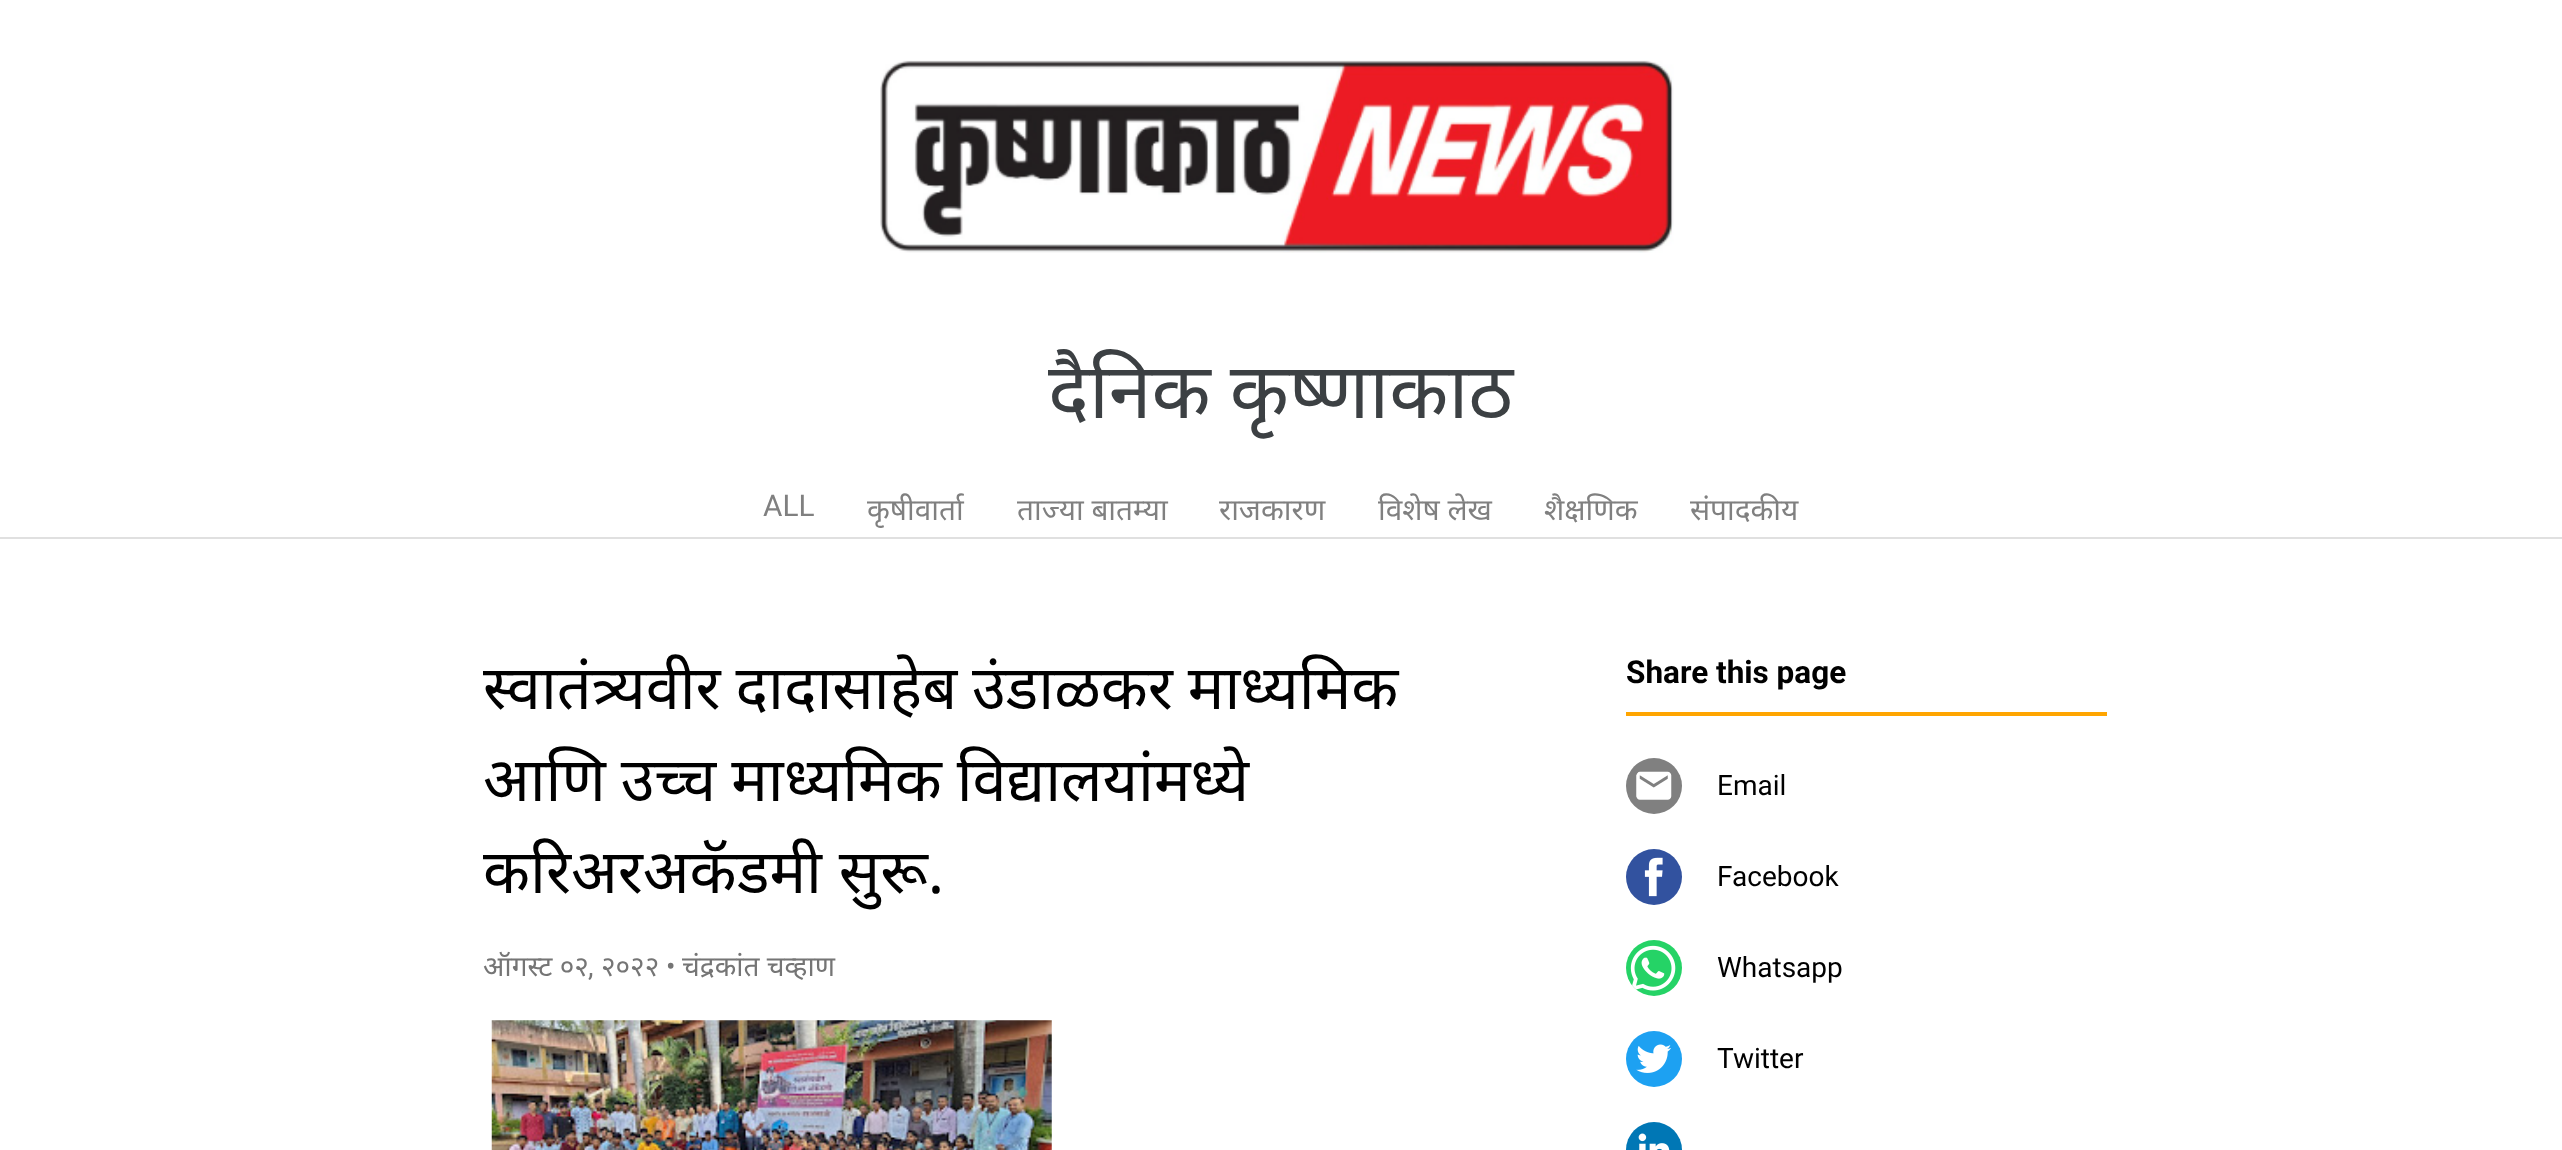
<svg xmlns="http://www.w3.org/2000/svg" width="2562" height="1150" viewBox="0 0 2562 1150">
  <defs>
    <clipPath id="clip1"><path d="M1020 334h522v116H1020z"/></clipPath>
  </defs>
  <rect width="100%" height="100%" fill="#fff"/>
  <path d="M0 537h2562v2H0z" fill="#e0e0e0"/>
  <image x="880" y="60" width="794" height="193" href="img/1.png"/>
  <image x="491" y="1020" width="561" height="130" href="img/2.png"/>
  <path d="M1626 712h481v4H1626z" fill="#ffa500"/>
  <circle cx="1654" cy="786" r="28" fill="#808080"/>
  <image x="1636" y="771" width="36" height="29" href="img/3.png"/>
  <circle cx="1654" cy="877" r="28" fill="#32529f"/>
  <image x="1644" y="857" width="19" height="40" href="img/4.png"/>
  <circle cx="1654" cy="968" r="28" fill="#25d366"/>
  <image x="1630" y="945" width="46" height="46" href="img/5.png"/>
  <circle cx="1654" cy="1059" r="28" fill="#1da1f2"/>
  <image x="1636" y="1044" width="35" height="29" href="img/6.png"/>
  <circle cx="1654" cy="1150" r="28" fill="#0077b5"/>
  <image x="1638" y="1133" width="32" height="17" href="img/7.png"/>
  <g clip-path="url(#clip1)">
    <text x="1048" y="418" word-spacing="-1" font-family="Noto Sans" font-size="77" fill="#3c4043">दैनिक कृष्णाकाठ</text>
  </g>
  <text x="763" y="516" font-family="Roboto" font-size="29.75" fill="#808080">ALL</text>
  <g font-family="Noto Sans" font-size="29.75" fill="#808080">
    <text x="867" y="520">कृषीवार्ता</text>
    <text x="1017" y="520">ताज्या बातम्या</text>
    <text x="1219" y="520">राजकारण</text>
    <text x="1378" y="520">विशेष लेख</text>
    <text x="1544" y="520">शैक्षणिक</text>
    <text x="1690" y="520">संपादकीय</text>
  </g>
  <g font-family="Noto Sans" font-size="61.25" fill="#000">
    <text x="483" y="709" word-spacing="-1">स्वातंत्र्यवीर दादासाहेब उंडाळकर माध्यमिक</text>
    <text x="483" y="801" word-spacing="-1">आणि उच्च माध्यमिक विद्यालयांमध्ये</text>
    <text x="483" y="893" word-spacing="1">करिअरअकॅडमी सुरू.</text>
  </g>
  <g font-family="Noto Sans" font-size="28" fill="#757575">
    <text x="483" y="976">ऑगस्ट ०२</text>
    <text x="601" y="976">२०२२</text>
  </g>
  <text x="666" y="976" font-family="Roboto" font-size="28" fill="#757575">•</text>
  <text x="682" y="976" font-family="Noto Sans" font-size="28" fill="#757575">चंद्रकांत चव्हाण</text>
  <text x="588" y="976" font-family="Roboto" font-size="28" fill="#757575">,</text>
  <text x="1626" y="683" font-family="Roboto" font-size="31.5" font-weight="bold" fill="#000">Share this page</text>
  <g font-family="Roboto" font-size="28" fill="#000">
    <text x="1717" y="795">Email</text>
    <text x="1717" y="886">Facebook</text>
    <text x="1717" y="977">Whatsapp</text>
    <text x="1717" y="1068">Twitter</text>
  </g>
</svg>
